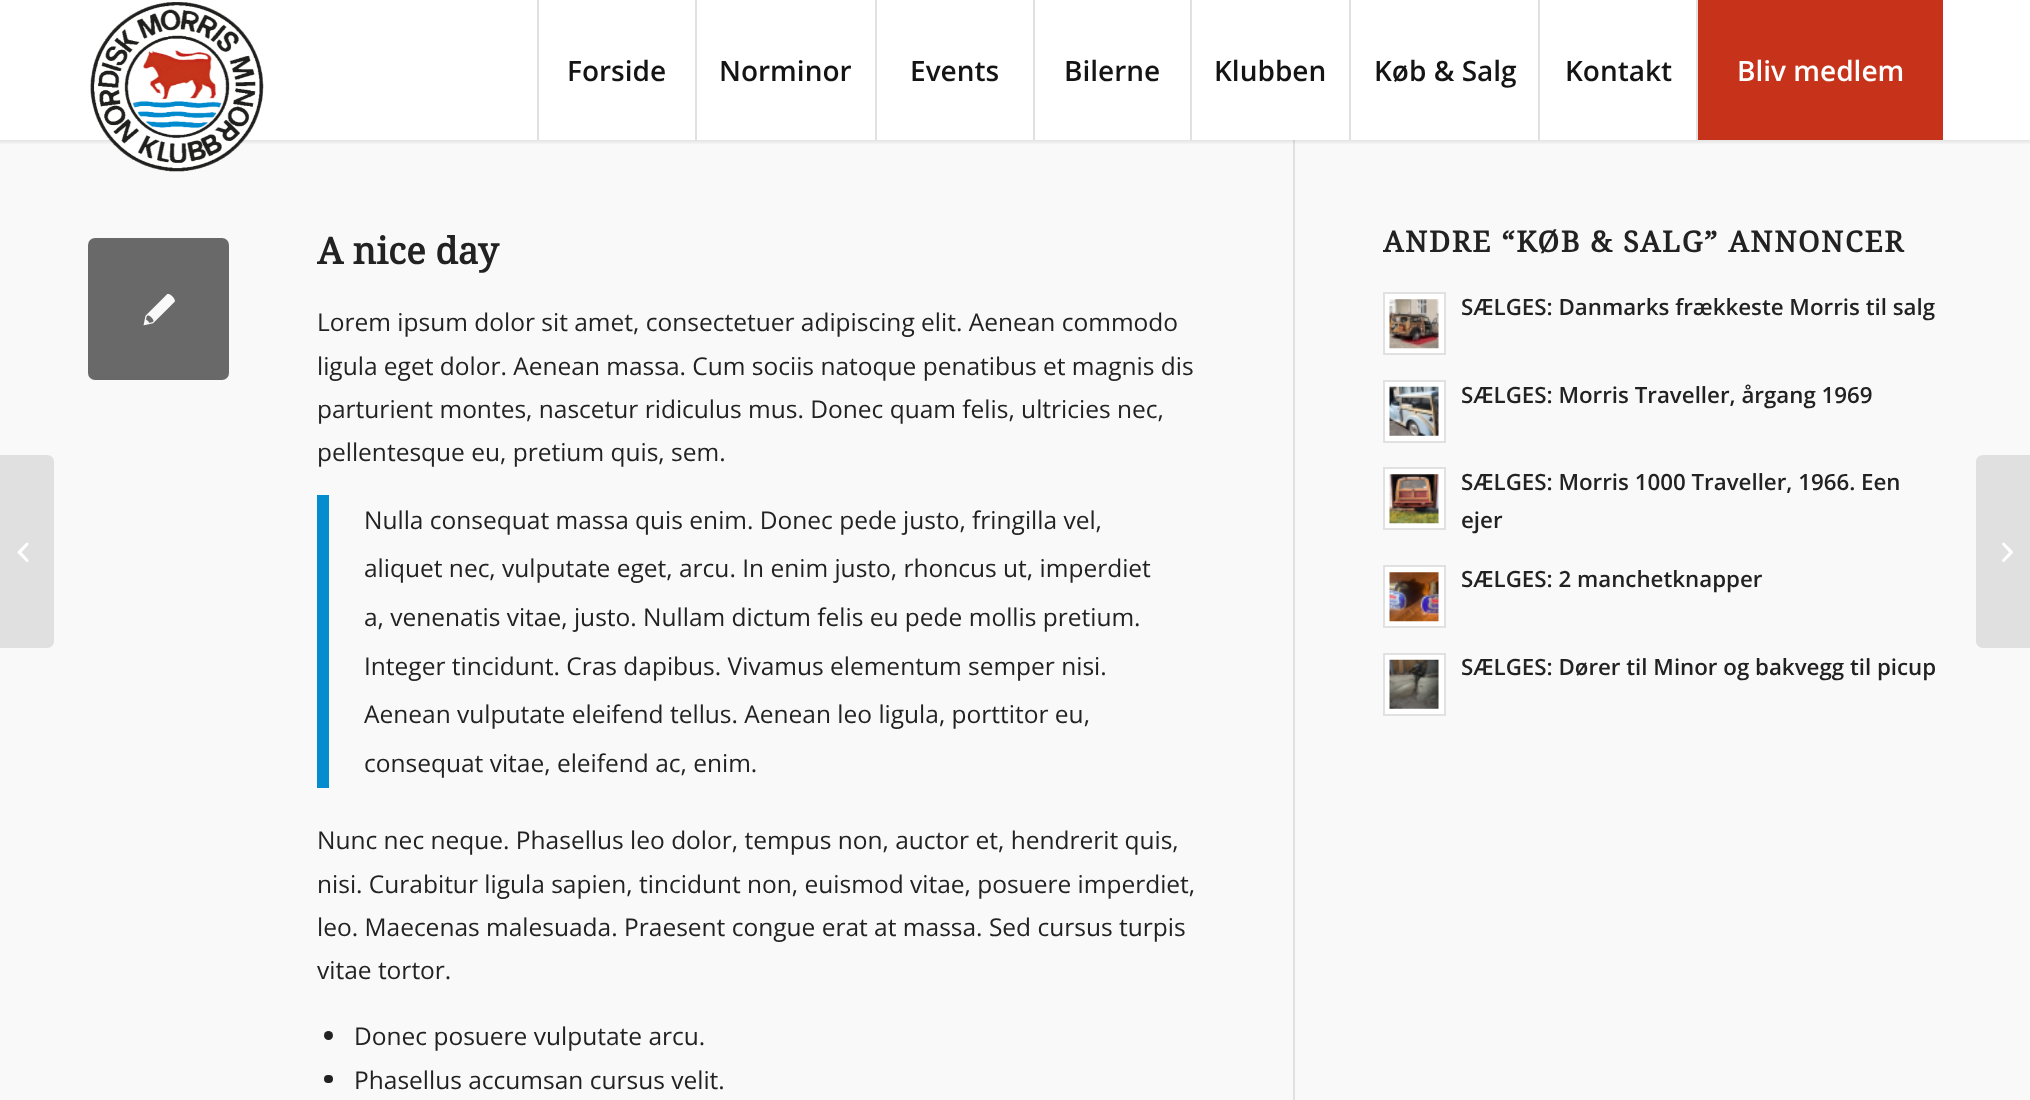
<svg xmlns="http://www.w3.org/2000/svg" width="2030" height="1100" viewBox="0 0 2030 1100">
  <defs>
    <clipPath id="clip1"><path d="M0 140h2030v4H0z"/></clipPath>
  </defs>
  <rect width="100%" height="100%" fill="#fff"/>
  <path d="M0 140h2030v960H0z" fill="#f9f9f9"/>
  <path d="M1293 140h2v960H1293z" fill="#e1e1e1"/>
  <g clip-path="url(#clip1)">
    <path d="M-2 -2h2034v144H-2z" fill="#0000001a" filter="blur(2px)"/>
  </g>
  <image x="90" y="2" width="174" height="170" href="img/1.png"/>
  <path d="M537 0h2v140H537z" fill="#e1e1e1"/>
  <path d="M695 0h2v140H695z" fill="#e1e1e1"/>
  <path d="M875 0h2v140H875z" fill="#e1e1e1"/>
  <path d="M1033 0h2v140H1033z" fill="#e1e1e1"/>
  <path d="M1190 0h2v140H1190z" fill="#e1e1e1"/>
  <path d="M1349 0h2v140H1349z" fill="#e1e1e1"/>
  <path d="M1538 0h2v140H1538z" fill="#e1e1e1"/>
  <path d="M1698 0h245v140H1698z" fill="#c6331a"/>
  <path d="M1696 0h2v140H1696z" fill="#e1e1e1"/>
  <path d="M0 455H47C51 455 54 458 54 462V641C54 645 51 648 47 648H0Z" fill="#e0e0e0"/>
  <image x="17" y="542" width="12" height="20" href="img/2.png"/>
  <rect x="88" y="238" width="141" height="142" rx="7" fill="#696969"/>
  <image x="143" y="293" width="32" height="33" href="img/3.png"/>
  <path d="M317 495h12v293H317z" fill="#058ccf"/>
  <circle cx="328.5" cy="1035.5" r="4.5" fill="#222"/>
  <rect x="324" y="1075" width="9" height="8" rx="4" fill="#222"/>
  <path d="M1384 293h61v61H1384z" fill="#fff" stroke="#e1e1e1" stroke-width="2"/>
  <image x="1389" y="299" width="50" height="50" href="img/4.png"/>
  <path d="M1384 381h61v61H1384z" fill="#fff" stroke="#e1e1e1" stroke-width="2"/>
  <image x="1389" y="386" width="50" height="50" href="img/5.png"/>
  <path d="M1384 468h61v61H1384z" fill="#fff" stroke="#e1e1e1" stroke-width="2"/>
  <image x="1389" y="474" width="50" height="50" href="img/6.png"/>
  <path d="M1384 566h61v61H1384z" fill="#fff" stroke="#e1e1e1" stroke-width="2"/>
  <image x="1389" y="572" width="50" height="50" href="img/7.png"/>
  <path d="M1384 654h61v61H1384z" fill="#fff" stroke="#e1e1e1" stroke-width="2"/>
  <image x="1389" y="659" width="50" height="50" href="img/8.png"/>
  <path d="M1983 455H2030V648H1983C1979 648 1976 645 1976 641V462C1976 458 1979 455 1983 455Z" fill="#e0e0e0"/>
  <image x="2002" y="542" width="11" height="20" href="img/9.png"/>
  <g font-family="Open Sans" font-size="28" font-weight="600" fill="#141414">
    <text x="567" y="81">Forside</text>
    <text x="719" y="81">Norminor</text>
    <text x="910" y="81">Events</text>
    <text x="1064" y="81">Bilerne</text>
    <text x="1214" y="81">Klubben</text>
    <text x="1374" y="81">Køb &amp; Salg</text>
    <text x="1565" y="81">Kontakt</text>
  </g>
  <text x="1737" y="81" font-family="Open Sans" font-size="28" font-weight="600" fill="#fff">Bliv medlem</text>
  <text x="317" y="264" font-family="Droid Serif" font-size="36.75" font-weight="bold" fill="#222">A nice day</text>
  <g font-family="Open Sans" font-size="24.5" fill="#222">
    <text x="317" y="331">Lorem ipsum dolor sit amet, consectetuer adipiscing elit. Aenean commodo</text>
    <text x="317" y="375">ligula eget dolor. Aenean massa. Cum sociis natoque penatibus et magnis dis</text>
    <text x="317" y="418">parturient montes, nascetur ridiculus mus. Donec quam felis, ultricies nec,</text>
    <text x="317" y="461">pellentesque eu, pretium quis, sem.</text>
    <text x="364" y="529">Nulla consequat massa quis enim. Donec pede justo, fringilla vel,</text>
    <text x="364" y="577">aliquet nec, vulputate eget, arcu. In enim justo, rhoncus ut, imperdiet</text>
    <text x="364" y="626">a, venenatis vitae, justo. Nullam dictum felis eu pede mollis pretium.</text>
    <text x="364" y="675">Integer tincidunt. Cras dapibus. Vivamus elementum semper nisi.</text>
    <text x="364" y="723">Aenean vulputate eleifend tellus. Aenean leo ligula, porttitor eu,</text>
    <text x="364" y="772">consequat vitae, eleifend ac, enim.</text>
    <text x="317" y="849">Nunc nec neque. Phasellus leo dolor, tempus non, auctor et, hendrerit quis,</text>
    <text x="317" y="893">nisi. Curabitur ligula sapien, tincidunt non, euismod vitae, posuere imperdiet,</text>
    <text x="317" y="936">leo. Maecenas malesuada. Praesent congue erat at massa. Sed cursus turpis</text>
    <text x="317" y="979">vitae tortor.</text>
    <text x="354" y="1045">Donec posuere vulputate arcu.</text>
    <text x="354" y="1089">Phasellus accumsan cursus velit.</text>
  </g>
  <text x="1383" y="252" font-family="Droid Serif" font-size="28.9" font-weight="bold" letter-spacing="1.75" fill="#222">ANDRE “KØB &amp; SALG” ANNONCER</text>
  <g font-family="Open Sans" font-size="22.3" font-weight="600" fill="#222">
    <text x="1461" y="315">SÆLGES: Danmarks frækkeste Morris til salg</text>
    <text x="1461" y="403">SÆLGES: Morris Traveller, årgang 1969</text>
    <text x="1461" y="490">SÆLGES: Morris 1000 Traveller, 1966. Een</text>
    <text x="1461" y="528">ejer</text>
    <text x="1461" y="587">SÆLGES: 2 manchetknapper</text>
    <text x="1461" y="675">SÆLGES: Dører til Minor og bakvegg til picup</text>
  </g>
</svg>
